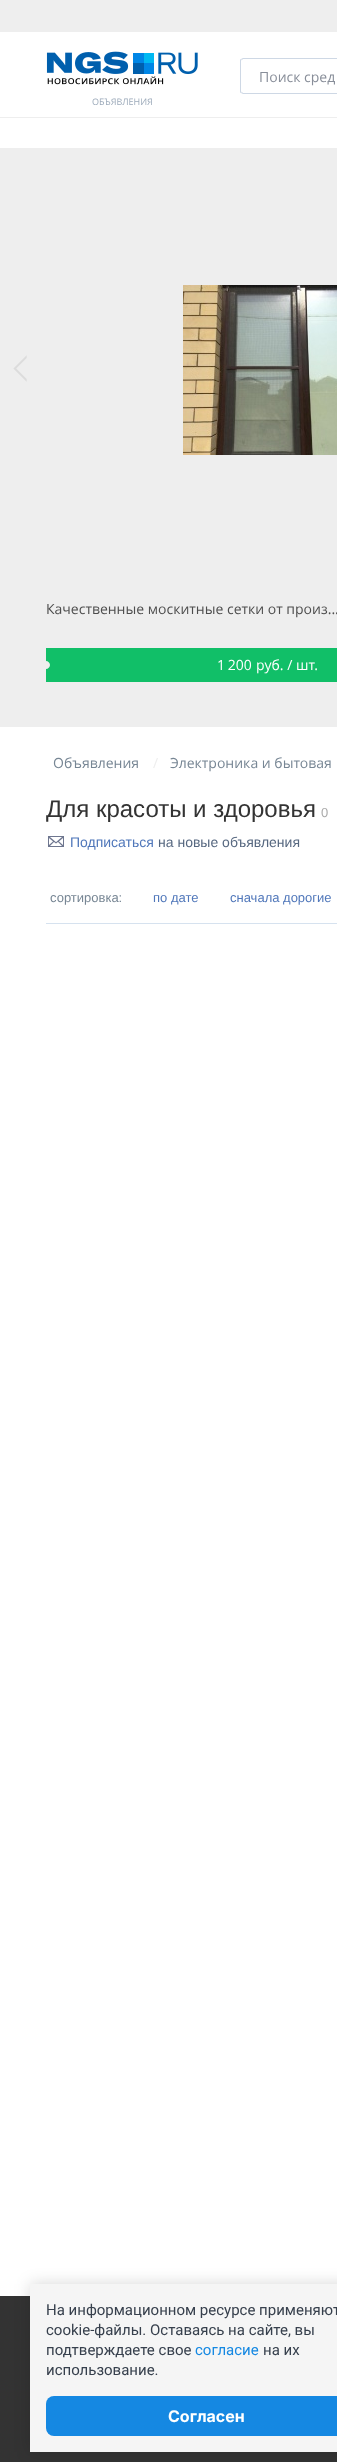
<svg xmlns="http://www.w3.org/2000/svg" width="337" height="2462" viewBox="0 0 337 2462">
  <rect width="100%" height="100%" fill="#fff"/>
  <path d="M0 0h337v32H0z" fill="#eee"/>
  <path d="M0 117h337v1H0z" fill="#eee"/>
  <path d="M243 58L241 59L242 60L243 59H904L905 58Z" fill="#ced8e5"/>
  <path d="M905 94L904 93H243L242 92L241 93L243 94Z" fill="#ced8e5"/>
  <path d="M240 61V91C240 92 240 93 241 93L241.5 92.5L241 91V61L241.5 59.5L241 59C240 59 240 60 240 61Z" fill="#ced8e5"/>
  <image x="46" y="51" width="152" height="34" href="img/1.png"/>
  <path d="M0 2296h337v166H0z" fill="#333"/>
  <path d="M30 2284h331v168H30z" fill="#00000029" filter="blur(8px)"/>
  <path d="M30 2284h307v168H30z" fill="#f5f5f5"/>
  <rect x="46" y="2396" width="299" height="40" rx="8" fill="#1588e2"/>
  <path d="M0 148h337v579H0z" fill="#eee"/>
  <image x="13" y="355" width="14" height="27" href="img/2.png"/>
  <image x="183" y="285" width="154" height="170" href="img/3.png"/>
  <path d="M46 648h291v34H46z" fill="#11bf68"/>
  <path d="M46 661C48 661 50 663 50 665C50 667 48 669 46 669Z" fill="#eee"/>
  <image x="48" y="836" width="16" height="11" href="img/4.png"/>
  <path d="M46 923h291v1H46z" fill="#d6e2ef"/>
  <text x="259" y="82" font-family="Open Sans" font-size="14" fill="#888e99">Поиск сред</text>
  <text x="92" y="105" font-family="Open Sans" font-size="9" fill="#9caaba">ОБЪЯВЛЕНИЯ</text>
  <g font-family="Roboto" font-size="15" fill="#37404d">
    <text x="46" y="2315">На информационном ресурсе применяют</text>
    <text x="46" y="2335">cookie-файлы. Оставаясь на сайте, вы</text>
    <text x="46" y="2355">подтверждаете свое</text>
  </g>
  <text x="195" y="2355" font-family="Roboto" font-size="15" fill="#1588e2">согласие</text>
  <g font-family="Roboto" font-size="15" fill="#37404d">
    <text x="263" y="2355">на их</text>
    <text x="46" y="2375">использование.</text>
  </g>
  <text x="168" y="2422" font-family="Inter" font-size="16" font-weight="bold" fill="#fff">Согласен</text>
  <text x="46" y="614" font-family="Open Sans" font-size="14" fill="#4d4d4d">Качественные москитные сетки от произ...</text>
  <g font-family="Open Sans" font-size="14" fill="#fff">
    <text x="217" y="670">1 200</text>
    <text x="256" y="670">руб. / шт.</text>
  </g>
  <text x="53" y="768" font-family="Open Sans" font-size="14" fill="#778694">Объявления</text>
  <text x="153" y="768" font-family="Open Sans" font-size="14" fill="#eee">/</text>
  <text x="170" y="768" font-family="Open Sans" font-size="14" fill="#778694">Электроника и бытовая</text>
  <text x="46" y="817" font-family="Liberation Sans" font-size="24" fill="#333">Для красоты и здоровья</text>
  <text x="321" y="817" font-family="Liberation Sans" font-size="13" fill="#ababab">0</text>
  <text x="70" y="847" font-family="Liberation Sans" font-size="14" fill="#5077ba">Подписаться</text>
  <text x="158" y="847" font-family="Liberation Sans" font-size="14" fill="#576880">на новые объявления</text>
  <text x="50" y="902" font-family="Liberation Sans" font-size="13" fill="#778694">сортировка:</text>
  <g font-family="Liberation Sans" font-size="13" fill="#5077ba">
    <text x="153" y="902">по дате</text>
    <text x="230" y="902">сначала дорогие</text>
  </g>
</svg>
